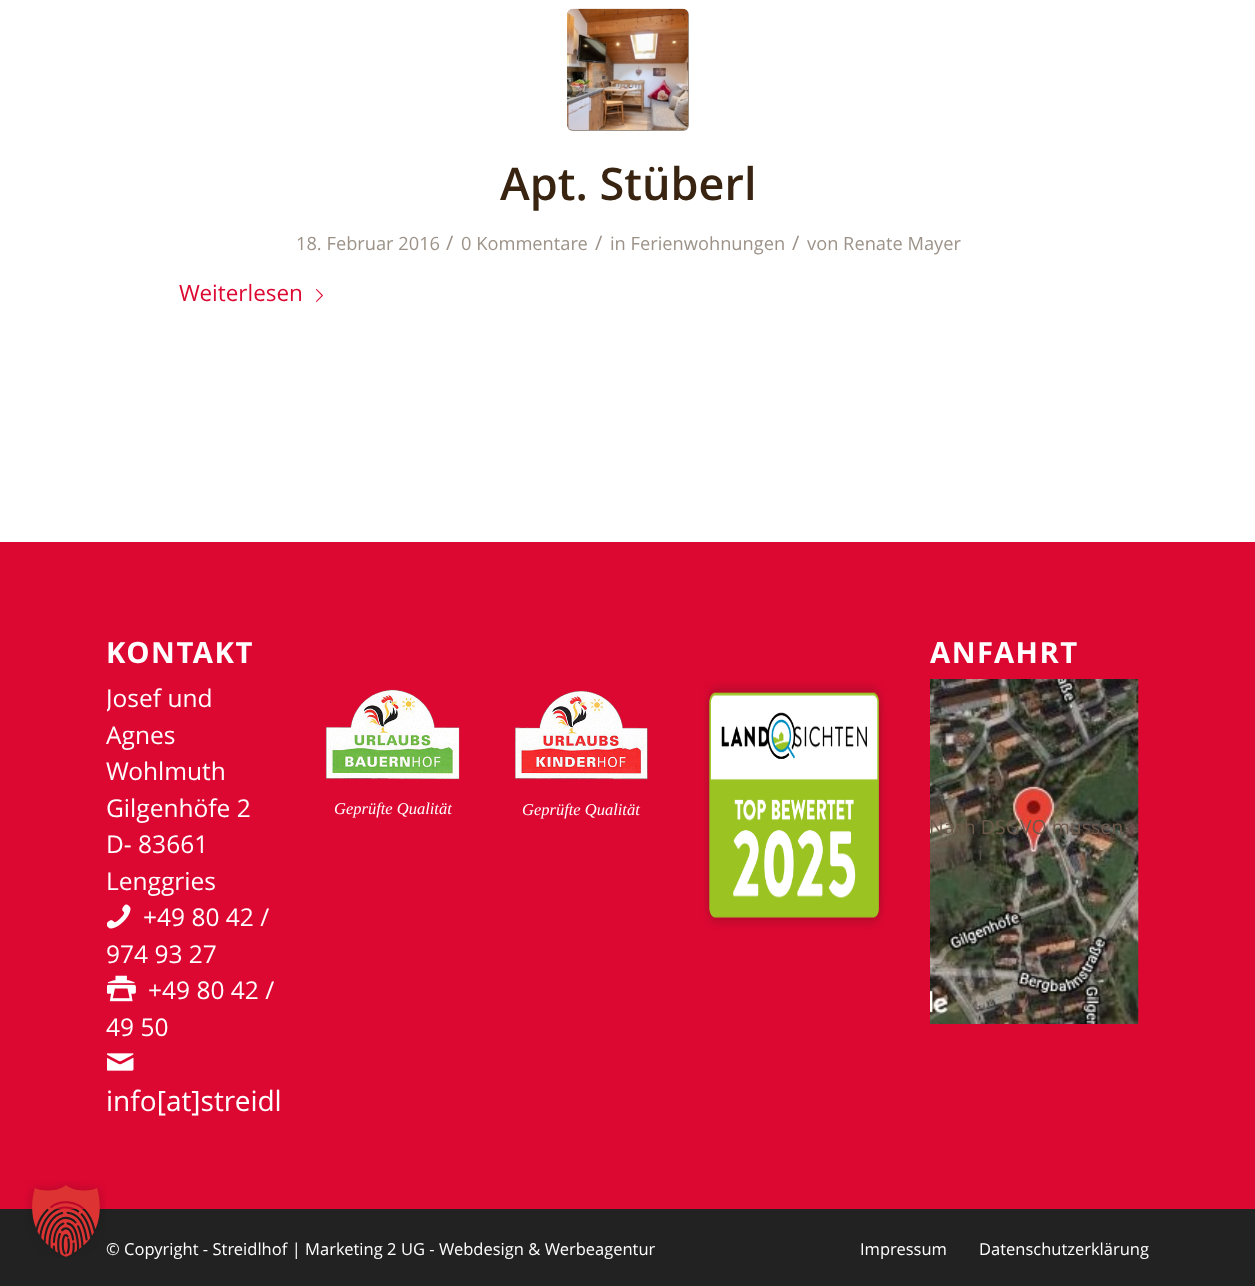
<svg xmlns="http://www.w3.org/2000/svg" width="1255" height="1286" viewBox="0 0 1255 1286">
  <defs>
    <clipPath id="clip1"><path d="M107 611h177v510H107z"/></clipPath>
  </defs>
  <rect width="100%" height="100%" fill="#fff"/>
  <path d="M0 542h1255v667H0z" fill="#dd0832"/>
  <path d="M0 1209h1255v77H0z" fill="#222"/>
  <image x="25" y="1180" width="81" height="77" href="img/1.png"/>
  <rect x="567" y="9" width="122" height="122" rx="6" fill="#9c9288"/>
  <image x="567" y="8" width="122" height="122" href="img/2.png"/>
  <image x="316" y="289" width="7" height="13" href="img/3.png"/>
  <image x="107" y="904" width="24" height="25" href="img/4.png"/>
  <image x="107" y="975" width="29" height="27" href="img/5.png"/>
  <image x="107" y="1053" width="27" height="18" href="img/6.png"/>
  <image x="325" y="689" width="135" height="91" href="img/7.png"/>
  <image x="515" y="691" width="133" height="89" href="img/8.png"/>
  <image x="703" y="681" width="183" height="248" href="img/9.png"/>
  <image x="930" y="679" width="209" height="345" href="img/10.png"/>
  <text x="500" y="200" font-family="Open Sans" font-size="45" font-weight="600" fill="#382410">Apt. Stüberl</text>
  <text x="296" y="250" font-family="Open Sans" font-size="18.25" fill="#9c9288">18. Februar 2016</text>
  <text x="446" y="250" font-family="Open Sans" font-size="20" fill="#9c9288">/</text>
  <text x="461" y="250" font-family="Open Sans" font-size="18.25" fill="#9c9288">0 Kommentare</text>
  <text x="595" y="250" font-family="Open Sans" font-size="20" fill="#9c9288">/</text>
  <text x="610" y="250" font-family="Open Sans" font-size="18.25" fill="#9c9288">in Ferienwohnungen</text>
  <text x="792" y="250" font-family="Open Sans" font-size="20" fill="#9c9288">/</text>
  <text x="807" y="250" font-family="Open Sans" font-size="18.25" fill="#9c9288">von Renate Mayer</text>
  <text x="179" y="301" font-family="Open Sans" font-size="22.5" fill="#dd0832">Weiterlesen</text>
  <text x="106" y="663" font-family="Open Sans" font-size="29.25" font-weight="bold" letter-spacing="1.5" fill="#fff">KONTAKT</text>
  <g clip-path="url(#clip1)">
    <text x="106" y="707" font-family="Open Sans" font-size="24.5" fill="#fff">Josef und</text>
  </g>
  <g font-family="Open Sans" font-size="24.5" fill="#fff">
    <text x="106" y="744">Agnes</text>
    <text x="106" y="780">Wohlmuth</text>
    <text x="106" y="817">Gilgenhöfe 2</text>
    <text x="106" y="853">D- 83661</text>
    <text x="106" y="890">Lenggries</text>
    <text x="143" y="926">+49 80 42 /</text>
    <text x="106" y="963">974 93 27</text>
    <text x="148" y="999">+49 80 42 /</text>
    <text x="106" y="1036">49 50</text>
  </g>
  <text x="106" y="1111" font-family="Open Sans" font-size="28" fill="#fff">info[at]streidl</text>
  <g font-family="Liberation Serif" font-size="16.5" font-style="italic" fill="#fff">
    <text x="334" y="814">Geprüfte Qualität</text>
    <text x="522" y="815">Geprüfte Qualität</text>
  </g>
  <text x="930" y="663" font-family="Open Sans" font-size="29.25" font-weight="bold" letter-spacing="1.5" fill="#fff">ANFAHRT</text>
  <text x="929" y="834" font-family="Open Sans" font-size="19.5" fill="#6d594c">Nach DSGVO müssen</text>
  <text x="978" y="860" font-family="Open Sans" font-size="19.5" fill="#544f44">i</text>
  <text x="1029" y="885" font-family="Open Sans" font-size="19.5" fill="#454e3c">.</text>
  <g font-family="Open Sans" font-size="16.5" fill="#fff">
    <text x="106" y="1255" word-spacing="0.1">© Copyright - Streidlhof | Marketing 2 UG - Webdesign &amp; Werbeagentur</text>
    <text x="860" y="1255">Impressum</text>
    <text x="979" y="1255">Datenschutzerklärung</text>
  </g>
</svg>
